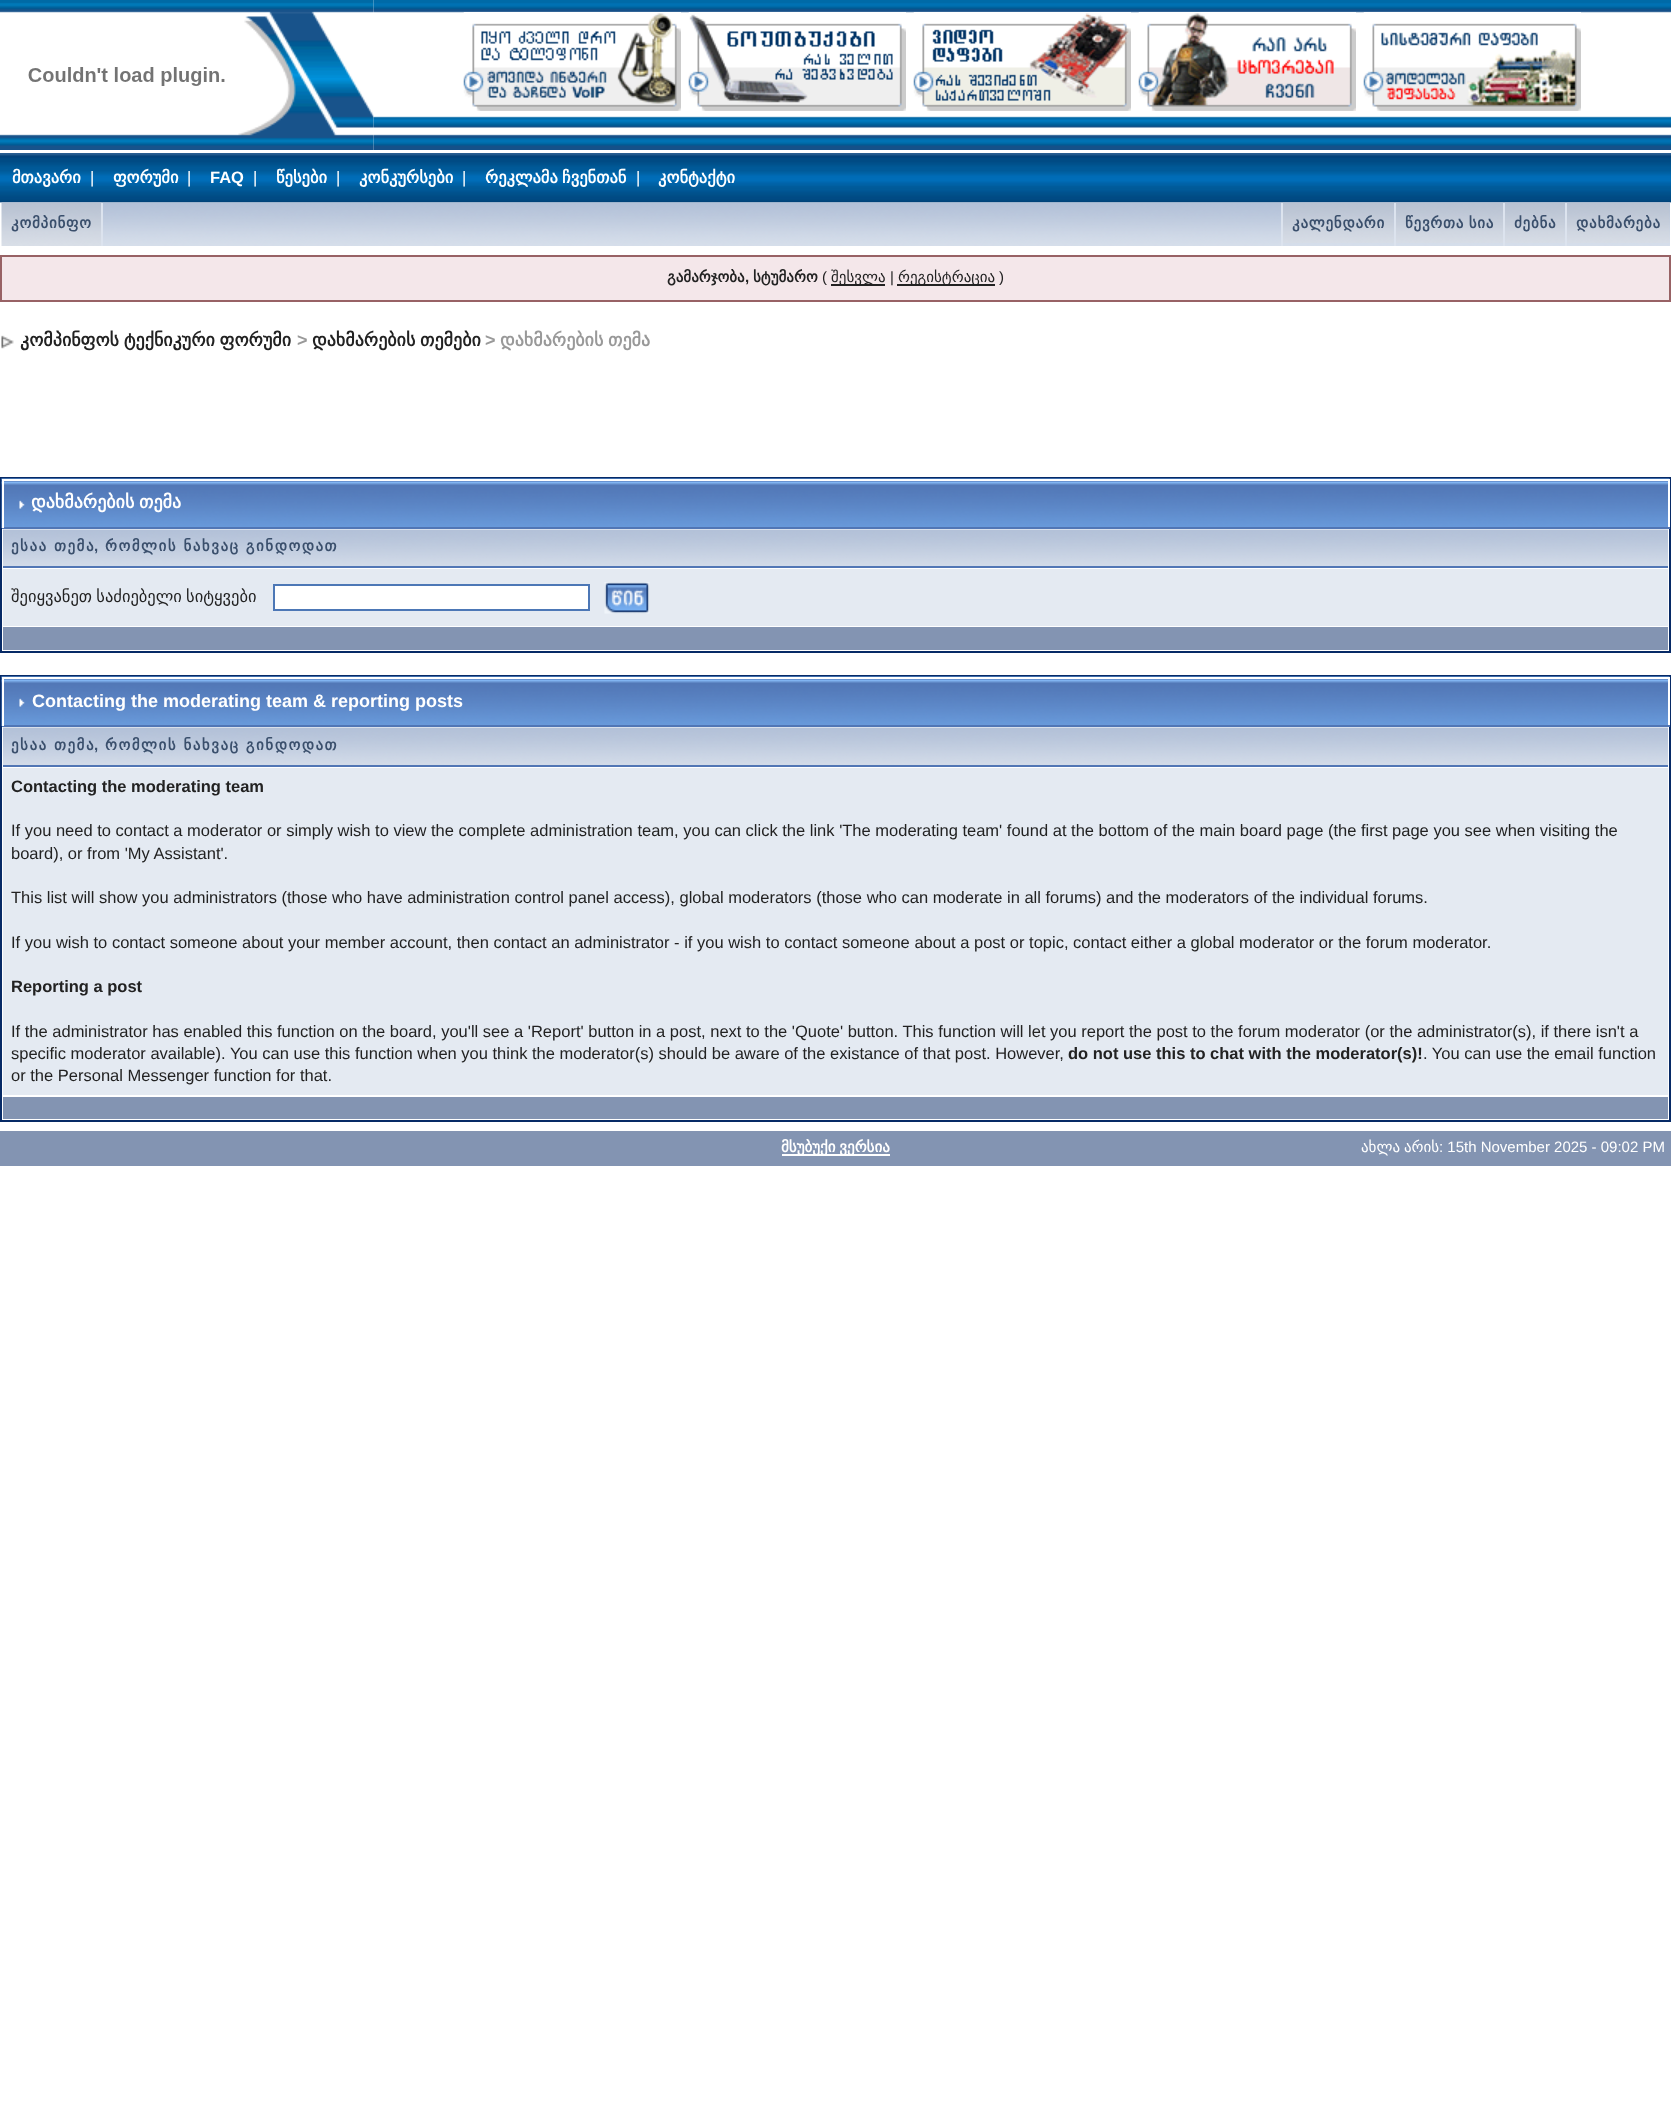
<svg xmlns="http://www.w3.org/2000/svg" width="1671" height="2124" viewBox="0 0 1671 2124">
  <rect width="100%" height="100%" fill="#fff"/>
  <image x="0" y="0" width="374" height="150" href="img/1.png"/>
  <image x="28" y="67" width="197" height="19" href="img/2.png"/>
  <image x="373" y="0" width="1298" height="150" href="img/3.png"/>
  <image x="463" y="12" width="1118" height="99" href="img/4.png"/>
  <image x="0" y="153" width="1671" height="50" href="img/5.png"/>
  <image x="0" y="202" width="1671" height="44" href="img/6.png"/>
  <path d="M1670 203h1v45H1670z" fill="#fff"/>
  <path d="M0 203h2v45H0z" fill="#fff"/>
  <image x="1" y="202" width="101" height="44" href="img/7.png"/>
  <path d="M101 203h2v43H101z" fill="#dce3ee"/>
  <image x="1393" y="202" width="110" height="41" href="img/9.png"/>
  <image x="1281" y="202" width="113" height="41" href="img/8.png"/>
  <path d="M1281 203h2v43H1281z" fill="#dce3ee"/>
  <path d="M1394 203h2v43H1394z" fill="#dce3ee"/>
  <image x="1564" y="202" width="106" height="41" href="img/11.png"/>
  <image x="1503" y="202" width="62" height="41" href="img/10.png"/>
  <path d="M1503 203h2v43H1503z" fill="#dce3ee"/>
  <path d="M1565 203h2v43H1565z" fill="#dce3ee"/>
  <path d="M1 256h1669v45H1z" fill="#f4e7ea" stroke="#986265" stroke-width="2"/>
  <path d="M831 284h54v2H831z" fill="#222"/>
  <path d="M897 284h98v2H897z" fill="#222"/>
  <image x="1" y="335" width="13" height="14" href="img/12.png"/>
  <path d="M1 478h1669v174H1z" fill="none" stroke="#072a66" stroke-width="2"/>
  <image x="1" y="478" width="1669" height="50" href="img/13.png"/>
  <path d="M2 479h1668v2H2z" fill="#fff"/>
  <path d="M1668 479h2v49H1668z" fill="#fff"/>
  <path d="M2 527h1668v2H2z" fill="#5176b5"/>
  <path d="M2 479h2v49H2z" fill="#fff"/>
  <image x="19" y="500" width="6" height="9" href="img/14.png"/>
  <image x="3" y="529" width="1665" height="37" href="img/15.png"/>
  <path d="M3 566h1665v2H3z" fill="#5176b5"/>
  <path d="M3 569h1665v57H3z" fill="#e4eaf2"/>
  <path d="M274 585h315v25H274z" fill="#fff" stroke="#4c77b6" stroke-width="2"/>
  <image x="604" y="582" width="46" height="32" href="img/16.png"/>
  <path d="M3 627h1665v23H3z" fill="#8394b2"/>
  <path d="M1 676h1669v445H1z" fill="none" stroke="#072a66" stroke-width="2"/>
  <image x="1" y="676" width="1669" height="50" href="img/13.png"/>
  <path d="M2 677h1668v2H2z" fill="#fff"/>
  <path d="M1668 677h2v49H1668z" fill="#fff"/>
  <path d="M2 725h1668v2H2z" fill="#5176b5"/>
  <path d="M2 677h2v49H2z" fill="#fff"/>
  <image x="19" y="698" width="6" height="9" href="img/14.png"/>
  <image x="3" y="727" width="1665" height="38" href="img/17.png"/>
  <path d="M3 765h1665v2H3z" fill="#5176b5"/>
  <path d="M3 768h1665v327H3z" fill="#e4eaf2"/>
  <path d="M3 1097h1665v22H3z" fill="#8394b2"/>
  <path d="M0 1131h1671v35H0z" fill="#8394b2"/>
  <path d="M782 1154h108v2H782z" fill="#fff"/>
  <text x="12" y="183" font-family="DejaVu Sans" font-size="16.5" font-weight="bold" fill="#fff">მთავარი</text>
  <text x="90" y="183" font-family="Liberation Sans" font-size="16.5" fill="#fff">|</text>
  <text x="113" y="183" font-family="DejaVu Sans" font-size="16.5" font-weight="bold" fill="#fff">ფორუმი</text>
  <text x="187" y="183" font-family="Liberation Sans" font-size="16.5" fill="#fff">|</text>
  <text x="210" y="183" font-family="Liberation Sans" font-size="16.5" font-weight="bold" fill="#fff">FAQ</text>
  <text x="253" y="183" font-family="Liberation Sans" font-size="16.5" fill="#fff">|</text>
  <text x="276" y="183" font-family="DejaVu Sans" font-size="16.5" font-weight="bold" fill="#fff">წესები</text>
  <text x="336" y="183" font-family="Liberation Sans" font-size="16.5" fill="#fff">|</text>
  <text x="359" y="183" font-family="DejaVu Sans" font-size="16.5" font-weight="bold" fill="#fff">კონკურსები</text>
  <text x="462" y="183" font-family="Liberation Sans" font-size="16.5" fill="#fff">|</text>
  <text x="485" y="183" word-spacing="-1" font-family="DejaVu Sans" font-size="16.5" font-weight="bold" fill="#fff">რეკლამა ჩვენთან</text>
  <text x="636" y="183" font-family="Liberation Sans" font-size="16.5" fill="#fff">|</text>
  <text x="658" y="183" font-family="DejaVu Sans" font-size="16.5" font-weight="bold" fill="#fff">კონტაქტი</text>
  <g font-family="DejaVu Sans" font-size="15" font-weight="bold" letter-spacing="0.75" fill="#3a4f6c">
    <text x="11" y="228">კომპინფო</text>
    <text x="1292" y="228">კალენდარი</text>
    <text x="1405" y="228" word-spacing="-1">წევრთა სია</text>
    <text x="1514" y="228">ძებნა</text>
    <text x="1576" y="228">დახმარება</text>
  </g>
  <text x="667" y="282" font-family="DejaVu Sans" font-size="15" font-weight="bold" fill="#222">გამარჯობა</text>
  <text x="745" y="282" font-family="Liberation Sans" font-size="15" font-weight="bold" fill="#222">,</text>
  <text x="753" y="282" font-family="DejaVu Sans" font-size="15" font-weight="bold" fill="#222">სტუმარო</text>
  <text x="822" y="282" font-family="Liberation Sans" font-size="15" fill="#222">(</text>
  <text x="831" y="282" font-family="DejaVu Sans" font-size="15" fill="#222">შესვლა</text>
  <text x="890" y="282" font-family="Liberation Sans" font-size="15" fill="#222">|</text>
  <text x="898" y="282" font-family="DejaVu Sans" font-size="15" fill="#222">რეგისტრაცია</text>
  <text x="999" y="282" font-family="Liberation Sans" font-size="15" fill="#222">)</text>
  <text x="20" y="346" word-spacing="-1" font-family="DejaVu Sans" font-size="18" font-weight="bold" fill="#222">კომპინფოს ტექნიკური ფორუმი</text>
  <text x="297" y="346" font-family="Liberation Sans" font-size="18" font-weight="bold" fill="#999">&gt;</text>
  <text x="312" y="346" word-spacing="-1" font-family="DejaVu Sans" font-size="18" font-weight="bold" fill="#222">დახმარების თემები</text>
  <text x="485" y="346" font-family="Liberation Sans" font-size="18" font-weight="bold" fill="#999">&gt;</text>
  <text x="500" y="346" word-spacing="-1" font-family="DejaVu Sans" font-size="18" font-weight="bold" fill="#999">დახმარების თემა</text>
  <text x="31" y="508" word-spacing="-1" font-family="DejaVu Sans" font-size="18" font-weight="bold" fill="#fff">დახმარების თემა</text>
  <text x="11" y="551" font-family="DejaVu Sans" font-size="15" font-weight="bold" letter-spacing="1.5" fill="#3a4f6c">ესაა თემა</text>
  <text x="94" y="551" font-family="Liberation Sans" font-size="15" font-weight="bold" letter-spacing="1.5" fill="#3a4f6c">,</text>
  <text x="105" y="551" font-family="DejaVu Sans" font-size="15" font-weight="bold" letter-spacing="1.5" fill="#3a4f6c">რომლის ნახვაც გინდოდათ</text>
  <text x="11" y="602" word-spacing="-1" font-family="DejaVu Sans" font-size="16.5" fill="#222">შეიყვანეთ საძიებელი სიტყვები</text>
  <text x="32" y="707" font-family="Liberation Sans" font-size="18" font-weight="bold" fill="#fff">Contacting the moderating team &amp; reporting posts</text>
  <text x="11" y="750" font-family="DejaVu Sans" font-size="15" font-weight="bold" letter-spacing="1.5" fill="#3a4f6c">ესაა თემა</text>
  <text x="94" y="750" font-family="Liberation Sans" font-size="15" font-weight="bold" letter-spacing="1.5" fill="#3a4f6c">,</text>
  <text x="105" y="750" font-family="DejaVu Sans" font-size="15" font-weight="bold" letter-spacing="1.5" fill="#3a4f6c">რომლის ნახვაც გინდოდათ</text>
  <text x="11" y="792" font-family="Liberation Sans" font-size="16.5" font-weight="bold" fill="#222">Contacting the moderating team</text>
  <g font-family="Liberation Sans" font-size="16.5" fill="#222">
    <text x="11" y="836">If you need to contact a moderator or simply wish to view the complete administration team, you can click the link 'The moderating team' found at the bottom of the main board page (the first page you see when visiting the</text>
    <text x="11" y="859">board), or from 'My Assistant'.</text>
    <text x="11" y="903">This list will show you administrators (those who have administration control panel access), global moderators (those who can moderate in all forums) and the moderators of the individual forums.</text>
    <text x="11" y="948">If you wish to contact someone about your member account, then contact an administrator - if you wish to contact someone about a post or topic, contact either a global moderator or the forum moderator.</text>
  </g>
  <text x="11" y="992" font-family="Liberation Sans" font-size="16.5" font-weight="bold" fill="#222">Reporting a post</text>
  <g font-family="Liberation Sans" font-size="16.5" fill="#222">
    <text x="11" y="1037">If the administrator has enabled this function on the board, you'll see a 'Report' button in a post, next to the 'Quote' button. This function will let you report the post to the forum moderator (or the administrator(s), if there isn't a</text>
    <text x="11" y="1059">specific moderator available). You can use this function when you think the moderator(s) should be aware of the existance of that post. However,</text>
  </g>
  <text x="1068" y="1059" font-family="Liberation Sans" font-size="16.5" font-weight="bold" fill="#222">do not use this to chat with the moderator(s)!</text>
  <g font-family="Liberation Sans" font-size="16.5" fill="#222">
    <text x="1423" y="1059">. You can use the email function</text>
    <text x="11" y="1081">or the Personal Messenger function for that.</text>
  </g>
  <text x="781" y="1152" word-spacing="-1" font-family="DejaVu Sans" font-size="15" font-weight="bold" fill="#fff">მსუბუქი ვერსია</text>
  <g font-family="DejaVu Sans" font-size="15" fill="#fff">
    <text x="1361" y="1152">ახლა</text>
    <text x="1404" y="1152">არის</text>
  </g>
  <text x="1439" y="1152" font-family="Liberation Sans" font-size="15" fill="#fff">: 15th November 2025 - 09:02 PM</text>
</svg>
